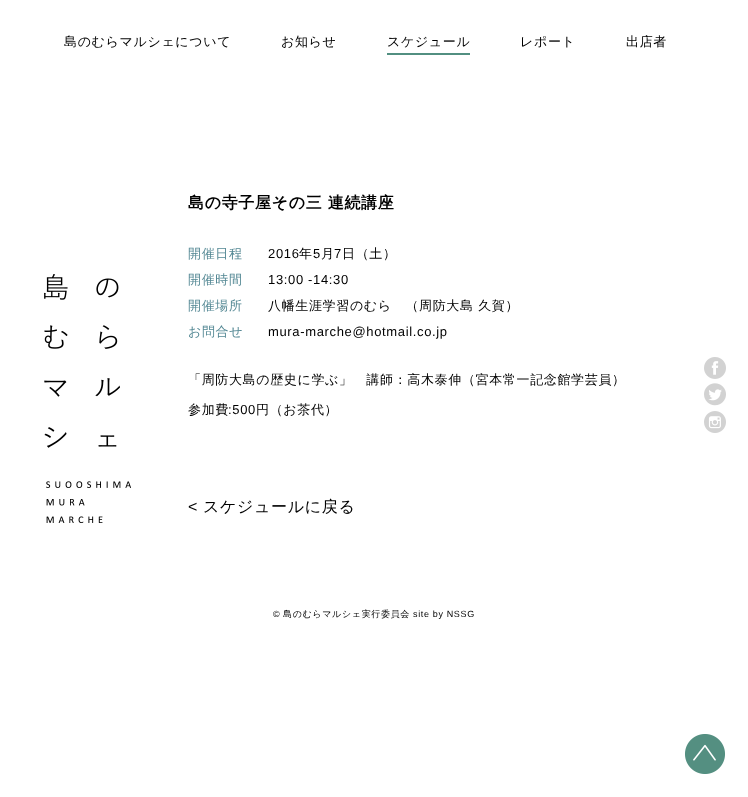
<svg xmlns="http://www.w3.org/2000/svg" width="748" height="797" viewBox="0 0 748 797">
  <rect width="100%" height="100%" fill="#fff"/>
  <path d="M387 53h83v2H387z" fill="#528f81"/>
  <image x="44" y="274" width="87" height="249" href="img/1.png"/>
  <image x="704" y="357" width="22" height="22" href="img/2.png"/>
  <image x="704" y="383" width="22" height="23" href="img/3.png"/>
  <image x="704" y="411" width="22" height="22" href="img/4.png"/>
  <image x="685" y="734" width="40" height="40" href="img/5.png"/>
  <g font-family="WenQuanYi Zen Hei" font-size="13" font-weight="500" letter-spacing="0.65" fill="#000">
    <text x="64" y="46">島のむらマルシェについて</text>
    <text x="281" y="46">お知らせ</text>
    <text x="387" y="46">スケジュール</text>
    <text x="520" y="46">レポート</text>
    <text x="626" y="46">出店者</text>
  </g>
  <text x="188" y="208" font-family="WenQuanYi Zen Hei" font-size="16" font-weight="bold" letter-spacing="0.65" fill="#000">島の寺子屋その三 連続講座</text>
  <text x="188" y="258" font-family="WenQuanYi Zen Hei" font-size="13" font-weight="500" letter-spacing="0.65" fill="#548894">開催日程</text>
  <text x="268" y="258" font-family="Liberation Sans" font-size="13" letter-spacing="0.65" fill="#000">2016</text>
  <text x="299" y="258" font-family="WenQuanYi Zen Hei" font-size="13" font-weight="500" letter-spacing="0.65" fill="#000">年</text>
  <text x="313" y="258" font-family="Liberation Sans" font-size="13" letter-spacing="0.65" fill="#000">5</text>
  <text x="321" y="258" font-family="WenQuanYi Zen Hei" font-size="13" font-weight="500" letter-spacing="0.65" fill="#000">月</text>
  <text x="334" y="258" font-family="Liberation Sans" font-size="13" letter-spacing="0.65" fill="#000">7</text>
  <text x="342" y="258" font-family="WenQuanYi Zen Hei" font-size="13" font-weight="500" letter-spacing="0.65" fill="#000">日（土）</text>
  <text x="188" y="284" font-family="WenQuanYi Zen Hei" font-size="13" font-weight="500" letter-spacing="0.65" fill="#548894">開催時間</text>
  <text x="268" y="284" font-family="Liberation Sans" font-size="13" letter-spacing="0.65" fill="#000">13:00 ‐14:30</text>
  <text x="188" y="310" font-family="WenQuanYi Zen Hei" font-size="13" font-weight="500" letter-spacing="0.65" fill="#548894">開催場所</text>
  <text x="268" y="310" font-family="WenQuanYi Zen Hei" font-size="13" font-weight="500" letter-spacing="0.65" fill="#000">八幡生涯学習のむら　（周防大島 久賀）</text>
  <text x="188" y="336" font-family="WenQuanYi Zen Hei" font-size="13" font-weight="500" letter-spacing="0.65" fill="#548894">お問合せ</text>
  <text x="268" y="336" font-family="Liberation Sans" font-size="13" letter-spacing="0.65" fill="#000">mura-marche@hotmail.co.jp</text>
  <g font-family="WenQuanYi Zen Hei" font-size="13" font-weight="500" letter-spacing="0.65" fill="#000">
    <text x="188" y="384">「周防大島の歴史に学ぶ」　講師：高木泰伸（宮本常一記念館学芸員）</text>
    <text x="188" y="414">参加費</text>
  </g>
  <text x="228" y="414" font-family="Liberation Sans" font-size="13" letter-spacing="0.65" fill="#000">:500</text>
  <text x="256" y="414" font-family="WenQuanYi Zen Hei" font-size="13" font-weight="500" letter-spacing="0.65" fill="#000">円（お茶代）</text>
  <text x="188" y="512" font-family="Liberation Sans" font-size="16" letter-spacing="0.65" fill="#000">&lt;</text>
  <text x="203" y="512" font-family="WenQuanYi Zen Hei" font-size="16" font-weight="500" letter-spacing="0.65" fill="#000">スケジュールに戻る</text>
  <text x="273" y="617" font-family="Liberation Sans" font-size="9" letter-spacing="0.65" fill="#000">©</text>
  <text x="283" y="617" font-family="WenQuanYi Zen Hei" font-size="9" font-weight="500" letter-spacing="0.65" fill="#000">島のむらマルシェ実行委員会</text>
  <text x="413" y="617" font-family="Liberation Sans" font-size="9" letter-spacing="0.65" fill="#000">site by NSSG</text>
</svg>
